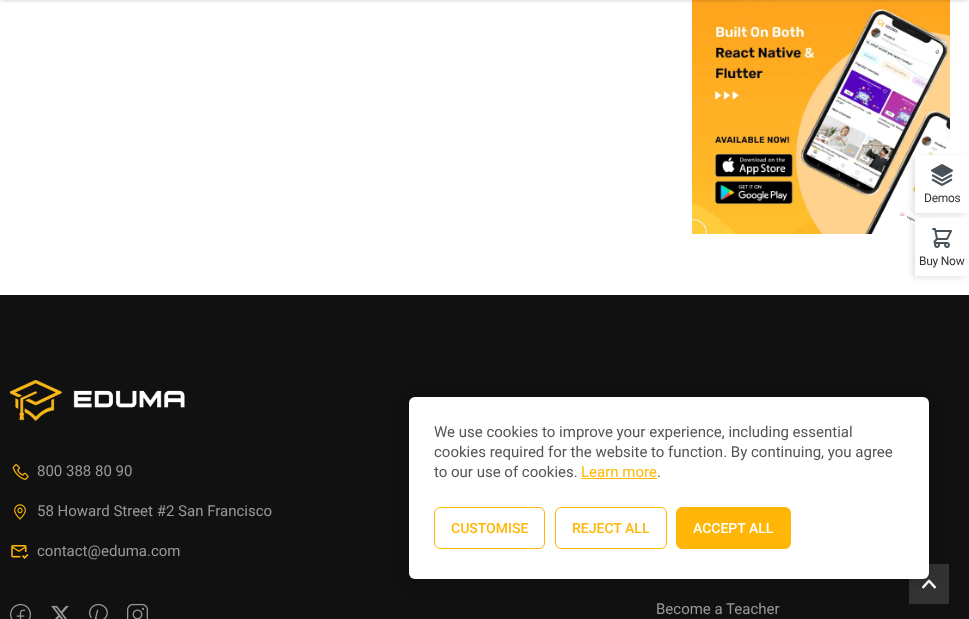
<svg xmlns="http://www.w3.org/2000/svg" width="969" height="619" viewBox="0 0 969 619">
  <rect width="100%" height="100%" fill="#fff"/>
  <image x="692" y="0" width="258" height="234" href="img/3.png"/>
  <path d="M913 158h52v56H913z" fill="#00000024" filter="blur(3px)"/>
  <path d="M915 155h54v58H915z" fill="#fff"/>
  <image x="931" y="164" width="22" height="22" href="img/1.png"/>
  <path d="M913 221h52v56H913z" fill="#00000024" filter="blur(3px)"/>
  <path d="M915 218h54v58H915z" fill="#fff"/>
  <image x="932" y="228" width="20" height="20" href="img/2.png"/>
  <path d="M0 295h969v324H0z" fill="#111"/>
  <path d="M909 564h40v40H909z" fill="#333"/>
  <image x="922" y="579" width="14" height="10" href="img/12.png"/>
  <rect x="410" y="402" width="518" height="180" rx="5" fill="#00000033" filter="blur(8px)"/>
  <rect x="409" y="397" width="520" height="182" rx="6" fill="#fff"/>
  <path d="M581 478h76v1H581z" fill="#ffb606"/>
  <rect x="434.5" y="507.5" width="110" height="41" rx="5.5" fill="none" stroke="#ffb606"/>
  <rect x="555.5" y="507.5" width="111" height="41" rx="5.5" fill="none" stroke="#ffb606"/>
  <rect x="676.5" y="507.5" width="114" height="41" rx="5.5" fill="#ffb606" stroke="#ffb606"/>
  <path d="M2 -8h965v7H2z" fill="#2a2a2a66" filter="blur(2.5px)"/>
  <image x="10" y="380" width="175" height="41" href="img/4.png"/>
  <image x="12" y="464" width="17" height="16" href="img/5.png"/>
  <image x="14" y="504" width="12" height="16" href="img/6.png"/>
  <image x="11" y="545" width="18" height="14" href="img/7.png"/>
  <image x="10" y="603" width="21" height="16" href="img/8.png"/>
  <image x="51" y="605" width="18" height="14" href="img/9.png"/>
  <image x="89" y="604" width="19" height="15" href="img/10.png"/>
  <image x="127" y="603" width="21" height="16" href="img/11.png"/>
  <g font-family="Roboto" font-size="12" letter-spacing="-0.25" fill="#333">
    <text x="924" y="202">Demos</text>
    <text x="919" y="265">Buy Now</text>
  </g>
  <g font-family="Roboto" font-size="15" fill="#555">
    <text x="434" y="437">We use cookies to improve your experience, including essential</text>
    <text x="434" y="457">cookies required for the website to function. By continuing, you agree</text>
    <text x="434" y="477">to our use of cookies.</text>
  </g>
  <text x="581" y="477" font-family="Roboto" font-size="15" fill="#ffb606">Learn more</text>
  <text x="657" y="477" font-family="Roboto" font-size="15" fill="#555">.</text>
  <g font-family="Roboto" font-size="14" font-weight="500" fill="#ffb606">
    <text x="451" y="533">CUSTOMISE</text>
    <text x="572" y="533">REJECT ALL</text>
  </g>
  <text x="693" y="533" font-family="Roboto" font-size="14" font-weight="500" fill="#fff">ACCEPT ALL</text>
  <g font-family="Roboto" font-size="15" fill="#999">
    <text x="37" y="476">800 388 80 90</text>
    <text x="37" y="516">58 Howard Street #2 San Francisco</text>
    <text x="37" y="556">contact@eduma.com</text>
    <text x="656" y="614">Become a Teacher</text>
  </g>
</svg>
